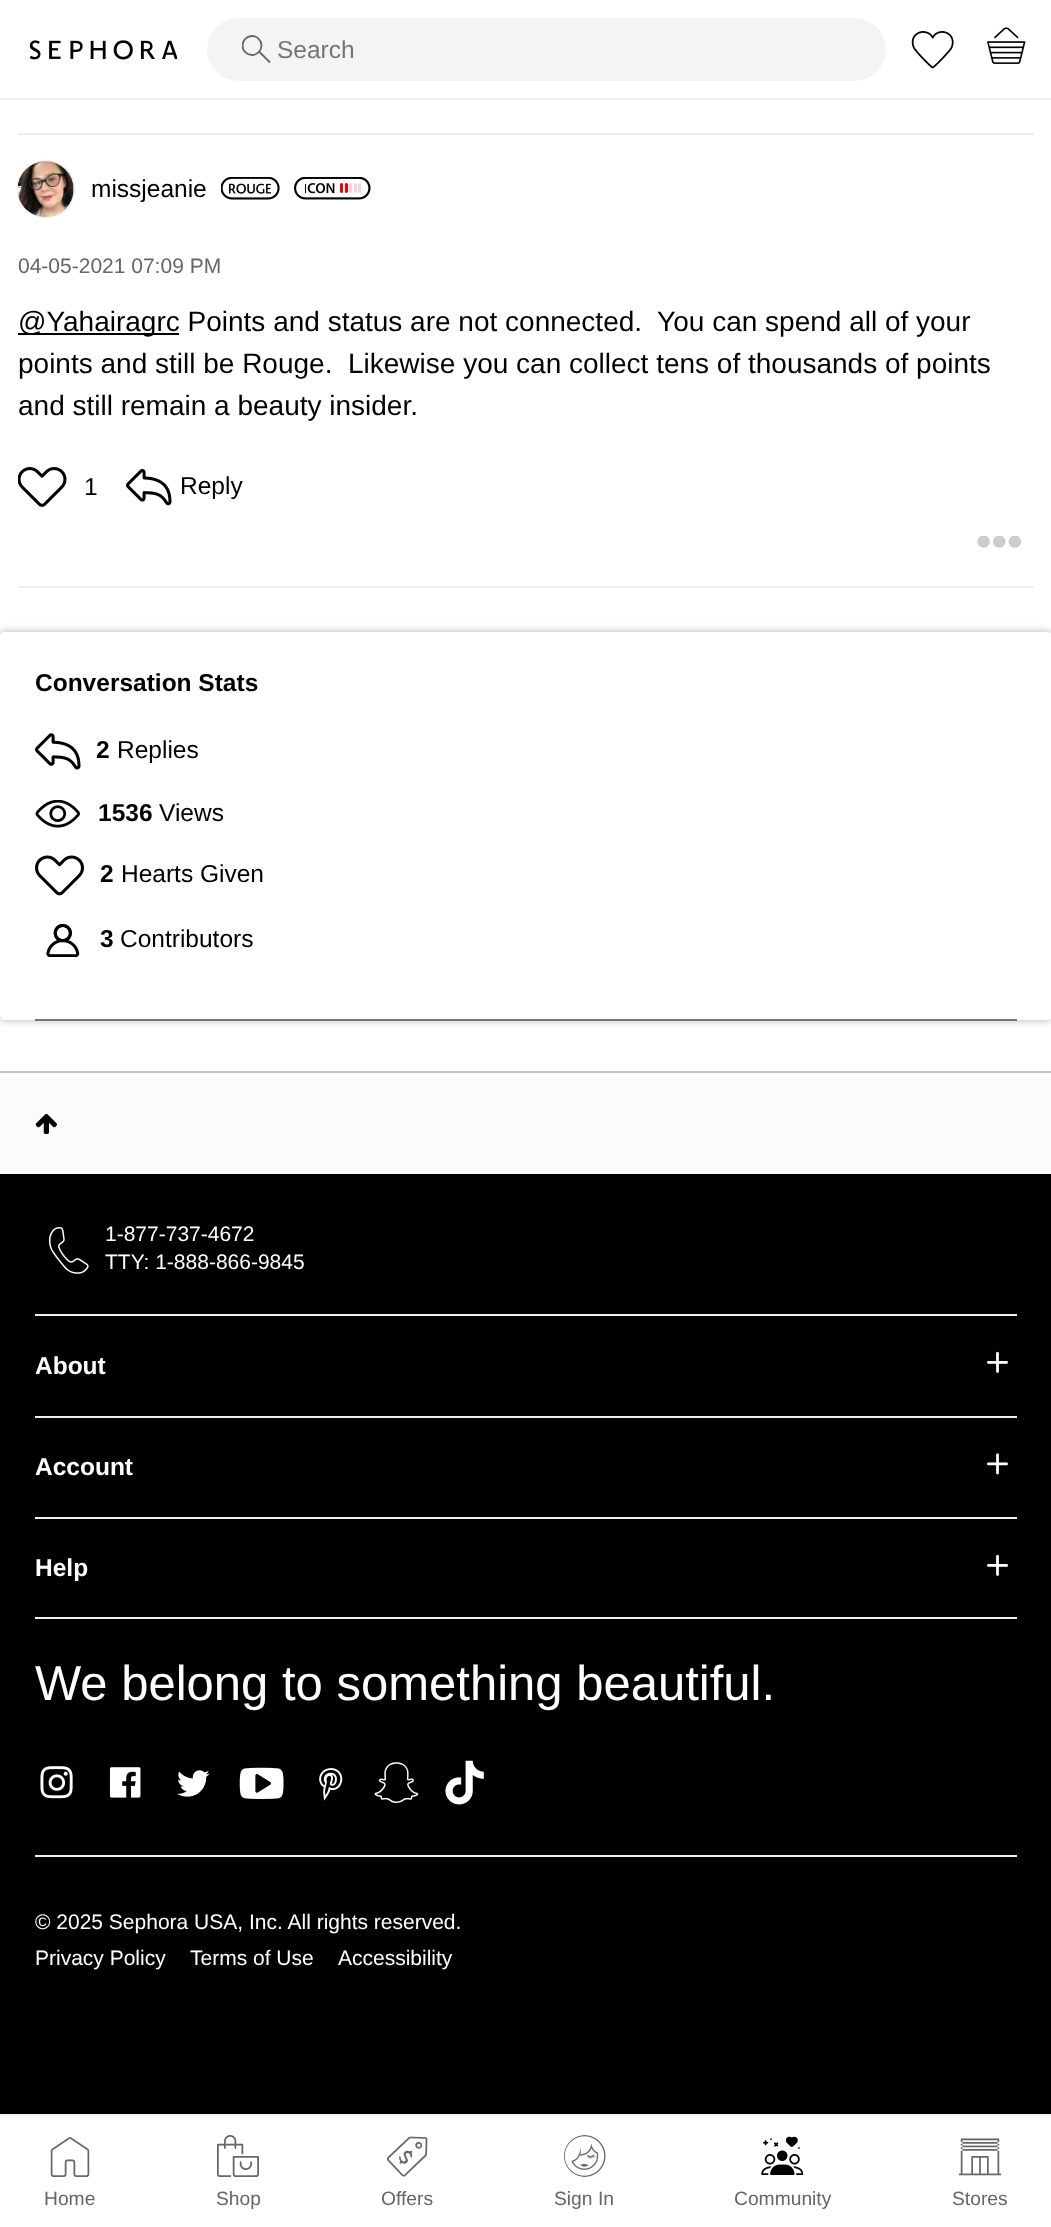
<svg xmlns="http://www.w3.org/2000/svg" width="1051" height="2227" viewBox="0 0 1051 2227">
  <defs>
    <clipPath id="clip1"><path d="M242 35h28v28H242z"/></clipPath>
    <clipPath id="clip2"><path d="M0 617H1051V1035H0ZM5 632H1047C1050 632 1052 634 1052 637V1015C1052 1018 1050 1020 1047 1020H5C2 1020 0 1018 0 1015V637C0 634 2 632 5 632Z" clip-rule="evenodd"/></clipPath>
  </defs>
  <rect width="100%" height="100%" fill="#fff"/>
  <path d="M0 98V100H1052V2V98Z" fill="#eee"/>
  <image x="30" y="40" width="147" height="20" href="img/1.png"/>
  <rect x="207" y="18" width="679" height="63" rx="31.5" fill="#f4f4f4"/>
  <g clip-path="url(#clip1)">
    <circle cx="252" cy="45.5" r="9.5" fill="none" stroke="#666" stroke-width="1.8"/>
  </g>
  <path d="M259.5 52L270 62.5" fill="none" stroke="#666" stroke-width="1.8"/>
  <image x="911" y="31" width="43" height="38" href="img/2.png"/>
  <image x="987" y="27" width="39" height="37" href="img/3.png"/>
  <path d="M0 2114h1051v2H0z" fill="#f4f4f4"/>
  <image x="50" y="2137" width="40" height="40" href="img/4.png"/>
  <image x="217" y="2135" width="42" height="42" href="img/5.png"/>
  <image x="386" y="2136" width="42" height="41" href="img/6.png"/>
  <image x="564" y="2135" width="42" height="42" href="img/7.png"/>
  <image x="761" y="2136" width="43" height="39" href="img/8.png"/>
  <image x="959" y="2138" width="42" height="38" href="img/9.png"/>
  <path d="M18 133h1016v2H18z" fill="#eee"/>
  <path d="M18 586h1016v2H18z" fill="#eee"/>
  <rect x="18" y="161" width="56" height="56" rx="28" fill="#c4c4c4" filter="blur(1px)"/>
  <image x="17" y="161" width="57" height="57" href="img/10.png"/>
  <image x="221" y="177" width="59" height="23" href="img/11.png"/>
  <image x="294" y="177" width="77" height="23" href="img/12.png"/>
  <path d="M18 333h161v2H18z" fill="#000"/>
  <image x="18" y="467" width="49" height="40" href="img/13.png"/>
  <image x="126" y="469" width="46" height="37" href="img/14.png"/>
  <image x="977" y="536" width="45" height="12" href="img/15.png"/>
  <g clip-path="url(#clip2)">
    <rect y="632" width="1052" height="388" rx="5" fill="#b1b1b1" filter="blur(4.5px)"/>
  </g>
  <path d="M35 1019h982v2H35z" fill="#757575"/>
  <image x="35" y="733" width="46" height="37" href="img/16.png"/>
  <image x="35" y="800" width="45" height="28" href="img/17.png"/>
  <image x="35" y="855" width="49" height="41" href="img/18.png"/>
  <image x="46" y="924" width="34" height="33" href="img/19.png"/>
  <path d="M0 1073h1051v101H0z" fill="#fbfbfb"/>
  <path d="M0 1071h1051v2H0z" fill="#c4c4c4"/>
  <image x="35" y="1113" width="22" height="21" href="img/20.png"/>
  <path d="M0 1174h1051v940H0z" fill="#000"/>
  <image x="48" y="1227" width="41" height="47" href="img/21.png"/>
  <path d="M35 1855h982v2H35z" fill="#eee"/>
  <image x="40" y="1766" width="33" height="33" href="img/22.png"/>
  <image x="109" y="1767" width="32" height="31" href="img/23.png"/>
  <image x="177" y="1770" width="33" height="27" href="img/24.png"/>
  <image x="239" y="1767" width="45" height="32" href="img/25.png"/>
  <image x="319" y="1768" width="24" height="33" href="img/26.png"/>
  <image x="374" y="1762" width="45" height="41" href="img/27.png"/>
  <image x="445" y="1760" width="39" height="45" href="img/28.png"/>
  <path d="M35 1314h982v2H35z" fill="#eee"/>
  <path d="M35 1416h982v2H35z" fill="#eee"/>
  <image x="987" y="1351" width="21" height="22" href="img/29.png"/>
  <path d="M35 1517h982v2H35z" fill="#eee"/>
  <image x="987" y="1453" width="21" height="22" href="img/30.png"/>
  <path d="M35 1617h982v2H35z" fill="#eee"/>
  <image x="987" y="1554" width="21" height="22" href="img/29.png"/>
  <text x="277" y="58" font-family="Liberation Sans" font-size="24.5" fill="#757575">Search</text>
  <g font-family="Liberation Sans" font-size="19.25" fill="#666">
    <text x="44" y="2205">Home</text>
    <text x="216" y="2205">Shop</text>
    <text x="381" y="2205">Offers</text>
    <text x="554" y="2205">Sign In</text>
    <text x="734" y="2205">Community</text>
    <text x="952" y="2205">Stores</text>
  </g>
  <text x="91" y="197" font-family="Liberation Sans" font-size="24.5" fill="#000">missjeanie</text>
  <text x="18" y="273" font-family="Liberation Sans" font-size="21" fill="#666">04-05-2021 07:09 PM</text>
  <g font-family="Liberation Sans" font-size="28" fill="#000">
    <text x="18" y="331" xml:space="preserve">@Yahairagrc Points and status are not connected.  You can spend all of your</text>
    <text x="18" y="373" xml:space="preserve">points and still be Rouge.  Likewise you can collect tens of thousands of points</text>
    <text x="18" y="415">and still remain a beauty insider.</text>
  </g>
  <g font-family="Liberation Sans" font-size="24.5" fill="#000">
    <text x="84" y="495">1</text>
    <text x="180" y="494">Reply</text>
  </g>
  <g font-family="Liberation Sans" font-size="24.5" font-weight="bold" fill="#000">
    <text x="35" y="691">Conversation Stats</text>
    <text x="96" y="758">2</text>
  </g>
  <text x="117" y="758" font-family="Liberation Sans" font-size="24.5" fill="#000">Replies</text>
  <text x="98" y="821" font-family="Liberation Sans" font-size="24.5" font-weight="bold" fill="#000">1536</text>
  <text x="159" y="821" font-family="Liberation Sans" font-size="24.5" fill="#000">Views</text>
  <text x="100" y="882" font-family="Liberation Sans" font-size="24.5" font-weight="bold" fill="#000">2</text>
  <text x="121" y="882" font-family="Liberation Sans" font-size="24.5" fill="#000">Hearts Given</text>
  <text x="100" y="947" font-family="Liberation Sans" font-size="24.5" font-weight="bold" fill="#000">3</text>
  <text x="120" y="947" font-family="Liberation Sans" font-size="24.5" fill="#000">Contributors</text>
  <g font-family="Liberation Sans" font-size="21" fill="#fff">
    <text x="105" y="1241">1-877-737-4672</text>
    <text x="105" y="1269">TTY: 1-888-866-9845</text>
    <text x="35" y="1929">© 2025 Sephora USA, Inc. All rights reserved.</text>
    <text x="35" y="1965">Privacy Policy</text>
    <text x="190" y="1965">Terms of Use</text>
    <text x="338" y="1965">Accessibility</text>
  </g>
  <g font-family="Liberation Sans" font-size="24.5" font-weight="bold" fill="#fff">
    <text x="35" y="1374">About</text>
    <text x="35" y="1475">Account</text>
    <text x="35" y="1576">Help</text>
  </g>
  <text x="35" y="1700" font-family="Liberation Sans" font-size="49" fill="#fff">We belong to something beautiful.</text>
</svg>
